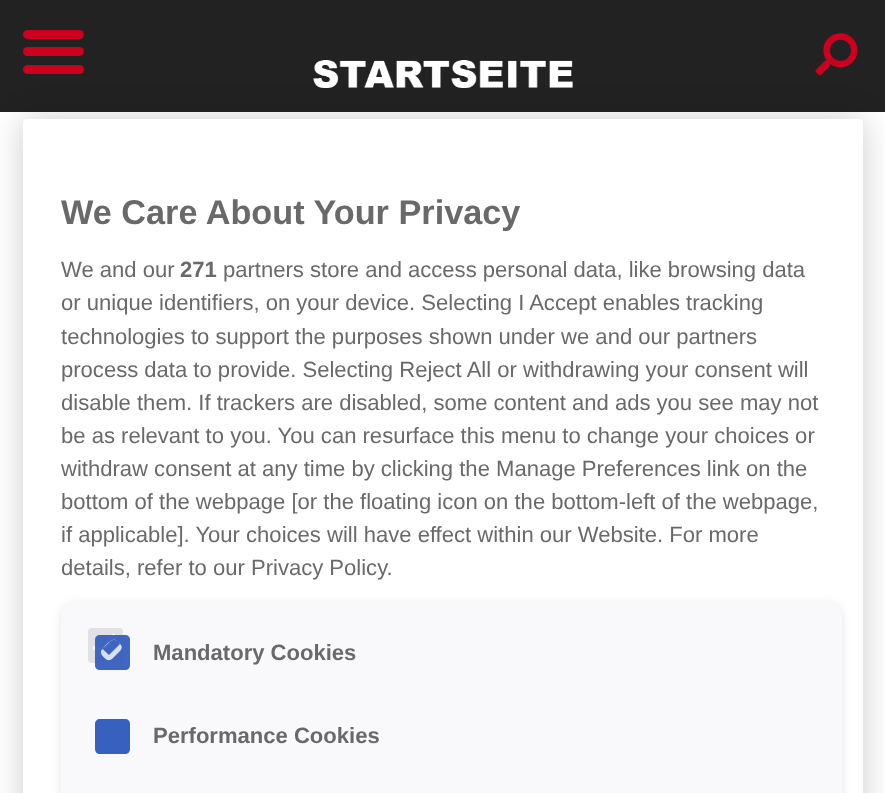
<svg xmlns="http://www.w3.org/2000/svg" width="885" height="793" viewBox="0 0 885 793">
  <rect width="100%" height="100%" fill="#fff"/>
  <path d="M0 0h885v112H0z" fill="#222"/>
  <image x="313" y="60" width="260" height="28" href="img/1.png"/>
  <image x="815" y="33" width="43" height="43" href="img/2.png"/>
  <rect x="23" y="30" width="61" height="9" rx="4.5" fill="#cb001f"/>
  <rect x="23" y="47" width="61" height="9" rx="4.5" fill="#cb001f"/>
  <rect x="23" y="65" width="61" height="9" rx="4.5" fill="#cb001f"/>
  <rect x="23" y="119" width="840" height="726" rx="4" fill="#00000033" filter="blur(16px)"/>
  <rect x="23" y="119" width="840" height="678" rx="4" fill="#fff"/>
  <rect x="61" y="604" width="781" height="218" rx="14" fill="#0000001a" filter="blur(5px)"/>
  <path d="M75 602H828C835.5 602 842 608.5 842 616V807H61V616C61 608.5 67.5 602 75 602Z" fill="#f9f9fc"/>
  <rect x="88" y="628" width="35" height="35" rx="4" fill="#e1e1e4"/>
  <path d="M94.5 646L101.5 653L115.5 635" fill="none" stroke="#fdfdfe" stroke-width="5.6"/>
  <rect x="95" y="635" width="35" height="35" rx="5" fill="#3860becc"/>
  <path d="M100 635H125C128 635 130 637 130 640V665C130 668 128 670 125 670H100C97 670 95 668 95 665V640C95 637 97 635 100 635Z" fill="#3860becc"/>
  <path d="M102.5 649L109 655L120 644L117.5 641.5C123.5 646.5 123 648.5 117.5 653.5L112.5 658.5C109.5 661.5 106.5 660 104 657.5C101.5 655 99.5 652 102.5 649ZM102.5 649C106 645.5 112 636 117.5 641.5C115.5 639.5 112 639.5 110 641.5Z" fill="#d9e0f2" fill-rule="evenodd"/>
  <path d="M100 719H125C128 719 130 721 130 724V749C130 752 128 754 125 754H100C97 754 95 752 95 749V724C95 721 97 719 100 719Z" fill="#3860be"/>
  <text x="61" y="224" font-family="Liberation Sans" font-size="34.25" font-weight="bold" fill="#696969">We Care About Your Privacy</text>
  <text x="61" y="277" font-family="Liberation Sans" font-size="22.05" fill="#696969">We and our</text>
  <text x="180" y="277" font-family="Liberation Sans" font-size="22.05" font-weight="bold" fill="#696969">271</text>
  <g font-family="Liberation Sans" font-size="22.05" fill="#696969">
    <text x="223" y="277">partners store and access personal data, like browsing data</text>
    <text x="61" y="310">or unique identifiers, on your device. Selecting I Accept enables tracking</text>
    <text x="61" y="344">technologies to support the purposes shown under we and our partners</text>
    <text x="61" y="377">process data to provide. Selecting Reject All or withdrawing your consent will</text>
    <text x="61" y="410">disable them. If trackers are disabled, some content and ads you see may not</text>
    <text x="61" y="443">be as relevant to you. You can resurface this menu to change your choices or</text>
    <text x="61" y="476">withdraw consent at any time by clicking the Manage Preferences link on the</text>
    <text x="61" y="509">bottom of the webpage [or the floating icon on the bottom-left of the webpage,</text>
    <text x="61" y="542">if applicable]. Your choices will have effect within our Website. For more</text>
    <text x="61" y="575">details, refer to our Privacy Policy.</text>
  </g>
  <g font-family="Liberation Sans" font-size="22.05" font-weight="bold" fill="#696969">
    <text x="153" y="660">Mandatory Cookies</text>
    <text x="153" y="743">Performance Cookies</text>
  </g>
</svg>
